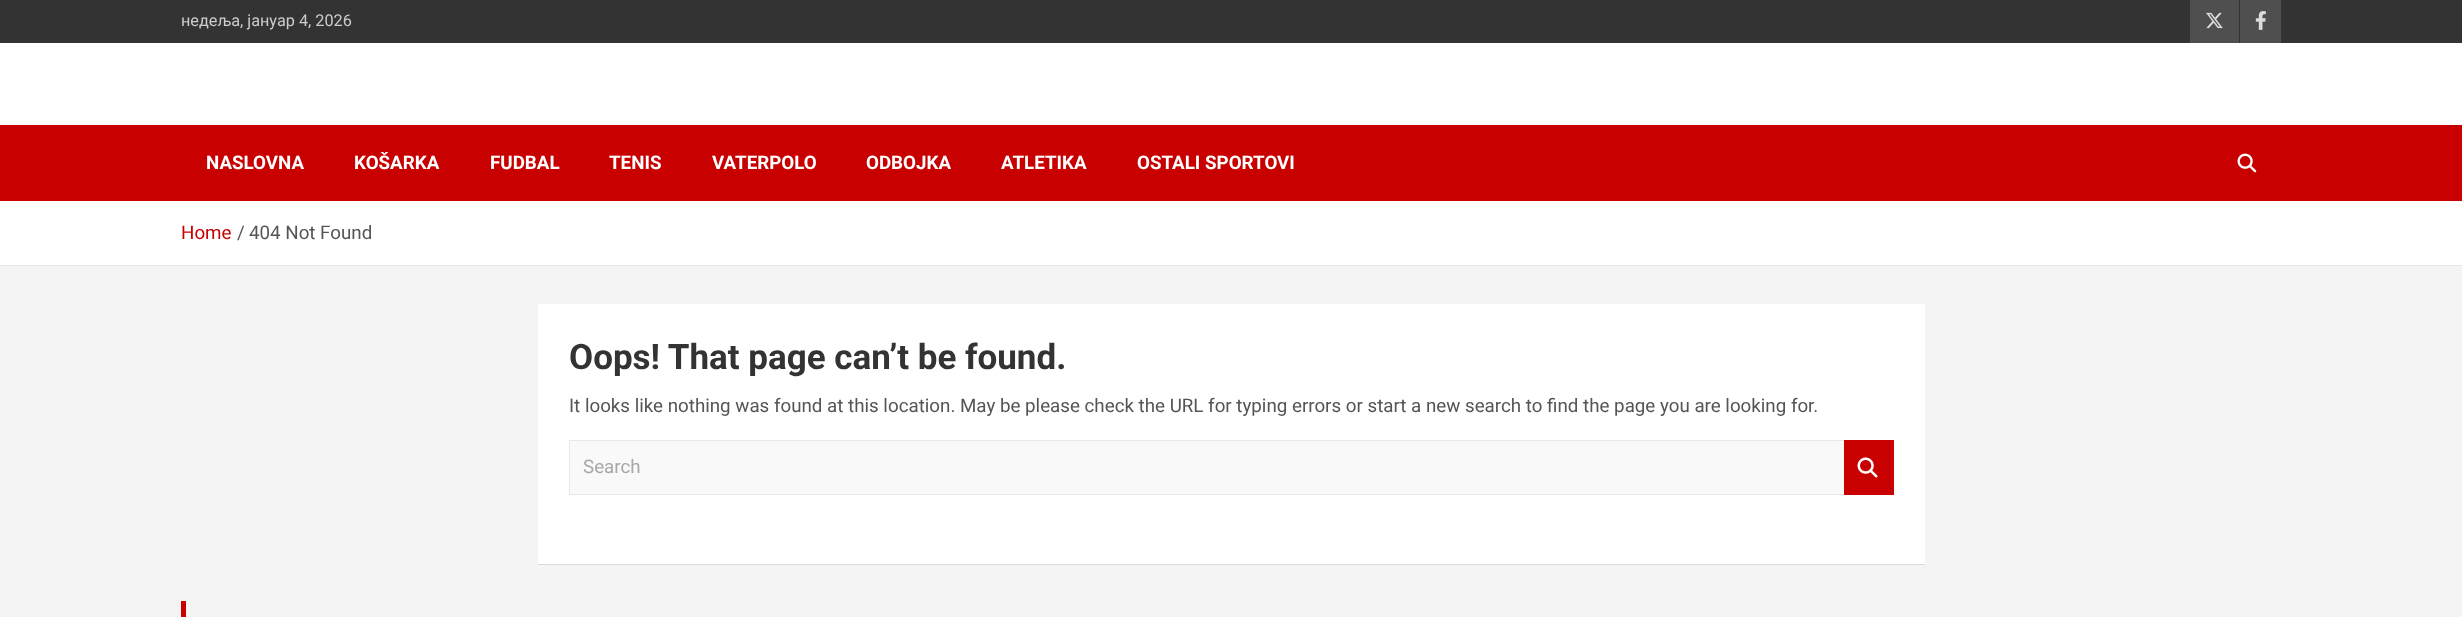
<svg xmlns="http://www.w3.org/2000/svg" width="2462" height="617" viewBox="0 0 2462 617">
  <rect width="100%" height="100%" fill="#f4f4f4"/>
  <path d="M0 0h2462v43H0z" fill="#333"/>
  <path d="M2190 0h49v43H2190z" fill="#4f4f4f"/>
  <image x="2206" y="12" width="17" height="17" href="img/1.png"/>
  <path d="M2240 0h41v43H2240z" fill="#4f4f4f"/>
  <image x="2255" y="11" width="11" height="19" href="img/2.png"/>
  <path d="M0 43h2462v82H0z" fill="#fff"/>
  <path d="M0 125h2462v76H0z" fill="#c80000"/>
  <image x="2237" y="153" width="20" height="20" href="img/3.png"/>
  <path d="M0 201h2462v64H0z" fill="#fff"/>
  <path d="M0 265h2462v1H0z" fill="#e6e6e6"/>
  <path d="M538 305h1387v260H538z" fill="#0000001a" filter="blur(0.5px)"/>
  <path d="M538 304h1387v260H538z" fill="#fff"/>
  <path d="M570 441h1274v53H570z" fill="#f9f9f9"/>
  <path d="M569 440H1844V441H570Z" fill="#e8e8e8"/>
  <path d="M1844 495H569L570 494H1844Z" fill="#e8e8e8"/>
  <path d="M569 495V440L570 441V494Z" fill="#00000017"/>
  <path d="M1844 440h50v55H1844z" fill="#c80000"/>
  <image x="1857" y="457" width="21" height="21" href="img/4.png"/>
  <path d="M181 601h5v16H181z" fill="#c80000"/>
  <text x="181" y="26" font-family="Roboto" font-size="16.25" fill="#ccc">недеља, јануар 4, 2026</text>
  <g font-family="Roboto" font-size="18.75" font-weight="bold" fill="#fff">
    <text x="206" y="169">NASLOVNA</text>
    <text x="354" y="169">KOŠARKA</text>
    <text x="490" y="169">FUDBAL</text>
    <text x="609" y="169">TENIS</text>
    <text x="712" y="169">VATERPOLO</text>
    <text x="866" y="169">ODBOJKA</text>
    <text x="1001" y="169">ATLETIKA</text>
    <text x="1137" y="169">OSTALI SPORTOVI</text>
  </g>
  <text x="181" y="239" font-family="Roboto" font-size="18.75" fill="#c80000">Home</text>
  <g font-family="Roboto" font-size="18.75" fill="#555">
    <text x="237" y="239">/</text>
    <text x="249" y="239">404 Not Found</text>
  </g>
  <text x="569" y="369" font-family="Roboto" font-size="35" font-weight="bold" fill="#333">Oops! That page can’t be found.</text>
  <text x="569" y="412" font-family="Roboto" font-size="18.75" fill="#555">It looks like nothing was found at this location. May be please check the URL for typing errors or start a new search to find the page you are looking for.</text>
  <text x="583" y="473" font-family="Roboto" font-size="18.75" fill="#a7a7a7">Search</text>
</svg>
